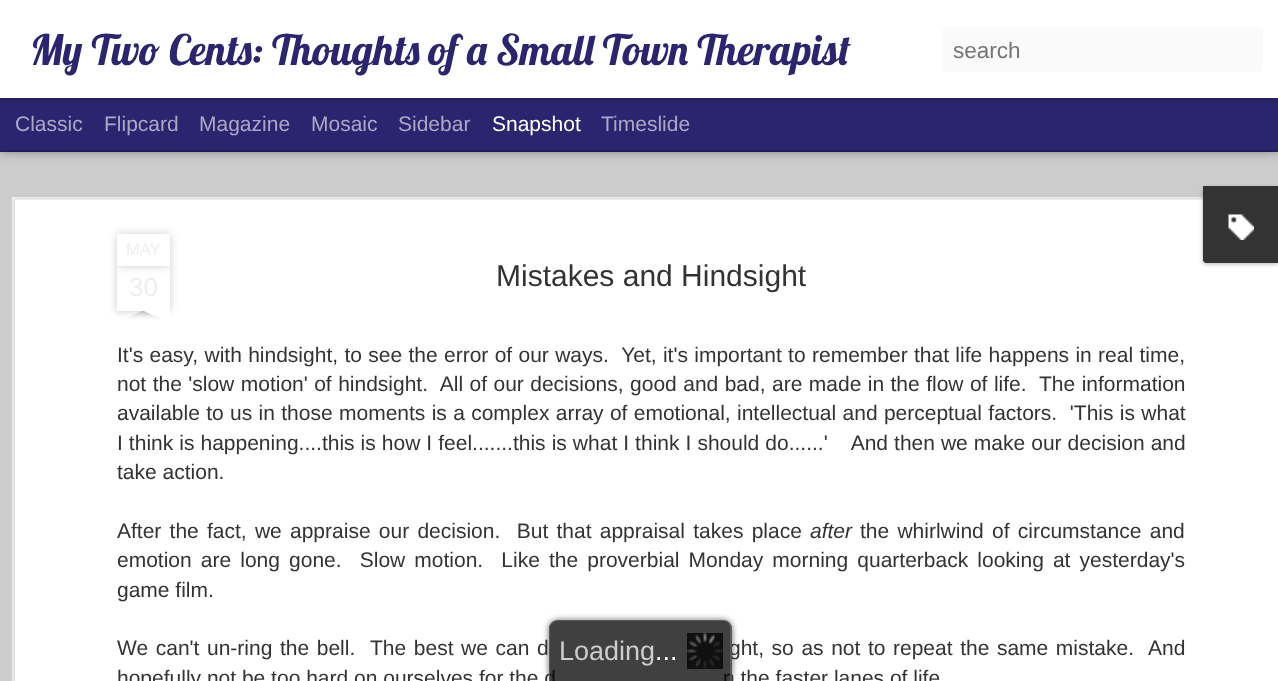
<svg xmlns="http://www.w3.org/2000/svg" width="1278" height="681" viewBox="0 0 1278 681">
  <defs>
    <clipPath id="clip1"><path d="M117 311h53v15H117z"/></clipPath>
    <clipPath id="clip2"><path d="M117 311h53v15H117z"/></clipPath>
    <clipPath id="clip3"><path d="M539 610H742V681H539ZM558 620H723C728 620 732 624 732 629V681H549V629C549 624 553 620 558 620Z" clip-rule="evenodd"/></clipPath>
  </defs>
  <rect width="100%" height="100%" fill="#2b256f"/>
  <path d="M0 152h1278v529H0z" fill="#ccc"/>
  <path d="M0 98h1278v52H0z" fill="#00000080" filter="blur(6px)"/>
  <path d="M0 98h1278v52H0z" fill="#2b256f"/>
  <path d="M0 0h1278v98H0z" fill="#0000004d" filter="blur(4px)"/>
  <path d="M0 0h1278v98H0z" fill="#fff"/>
  <rect x="942" y="27" width="321" height="45" rx="5" fill="#fafafa"/>
  <path d="M12 197h1266v484H12z" fill="#fff"/>
  <image x="12" y="197" width="1191" height="484" href="img/2.png"/>
  <rect x="1203" y="188" width="75" height="76" rx="3" fill="#0000004d" filter="blur(2px)"/>
  <path d="M1203 186H1278V263H1206C1204.5 263 1203 261.5 1203 260Z" fill="#333"/>
  <image x="1228" y="214" width="26" height="26" href="img/1.png"/>
  <path d="M117 266h53v45H117z" fill="#00000033" filter="blur(4px)"/>
  <path d="M117 266h53v45H117z" fill="#fff"/>
  <rect x="117" y="234" width="53" height="32" rx="1.5" fill="#00000033" filter="blur(4px)"/>
  <path d="M118.5 234H168.5C169.5 234 170 234.5 170 235.5V266H117V235.5C117 234.5 117.5 234 118.5 234Z" fill="#fff"/>
  <g clip-path="url(#clip1)">
    <path d="M104 296h75v15H104z" fill="#00000033" filter="blur(4px)"/>
  </g>
  <g clip-path="url(#clip2)">
    <path d="M104 312L172 280L178 294L110 326Z" fill="#fff"/>
  </g>
  <g clip-path="url(#clip1)">
    <path d="M108 296h75v15H108z" fill="#00000033" filter="blur(4px)"/>
  </g>
  <g clip-path="url(#clip2)">
    <path d="M115 280L183 312L176 326L108 294Z" fill="#fff"/>
  </g>
  <g clip-path="url(#clip3)">
    <rect x="549" y="620" width="183" height="61" rx="9" fill="#333333bf" filter="blur(3px)"/>
  </g>
  <text x="30" y="65" font-family="Lobster" font-size="42" fill="#2b256f">My Two Cents: Thoughts of a Small Town Therapist</text>
  <text x="953" y="58" font-family="Liberation Sans" font-size="22.5" fill="#757575">search</text>
  <g font-family="Liberation Sans" font-size="21" fill="#aaa8c5">
    <text x="15" y="131">Classic</text>
    <text x="104" y="131">Flipcard</text>
    <text x="199" y="131">Magazine</text>
    <text x="311" y="131">Mosaic</text>
    <text x="398" y="131">Sidebar</text>
  </g>
  <text x="492" y="131" font-family="Liberation Sans" font-size="21" fill="#fff">Snapshot</text>
  <text x="601" y="131" font-family="Liberation Sans" font-size="21" fill="#aaa8c5">Timeslide</text>
  <text x="126" y="255" font-family="Liberation Sans" font-size="16.5" fill="#eee">MAY</text>
  <text x="129" y="296" font-family="Liberation Sans" font-size="26" fill="#eee">30</text>
  <text x="496" y="286" font-family="Liberation Sans" font-size="30" fill="#333">Mistakes and Hindsight</text>
  <g font-family="Liberation Sans" font-size="21" fill="#333">
    <text x="117" y="362" word-spacing="0.5" xml:space="preserve">It's easy, with hindsight, to see the error of our ways.  Yet, it's important to remember that life happens in real time,</text>
    <text x="117" y="391" word-spacing="0.6" xml:space="preserve">not the 'slow motion' of hindsight.  All of our decisions, good and bad, are made in the flow of life.  The information</text>
    <text x="117" y="420" word-spacing="0.5" xml:space="preserve">available to us in those moments is a complex array of emotional, intellectual and perceptual factors.  'This is what</text>
    <text x="117" y="450" word-spacing="0.2" xml:space="preserve">I think is happening....this is how I feel.......this is what I think I should do......'    And then we make our decision and</text>
    <text x="117" y="479">take action.</text>
    <text x="117" y="538" word-spacing="2.4" xml:space="preserve">After the fact, we appraise our decision.  But that appraisal takes place</text>
  </g>
  <text x="810" y="538" font-family="Liberation Sans" font-size="21" font-style="italic" fill="#333">after</text>
  <g font-family="Liberation Sans" font-size="21" fill="#333">
    <text x="860" y="538" word-spacing="2.4">the whirlwind of circumstance and</text>
    <text x="117" y="567" word-spacing="3.25" xml:space="preserve">emotion are long gone.  Slow motion.  Like the proverbial Monday morning quarterback looking at yesterday's</text>
    <text x="117" y="597">game film.</text>
    <text x="117" y="655" word-spacing="1.75" xml:space="preserve">We can't un-ring the bell.  The best we can d</text>
    <text x="729" y="655" word-spacing="1.75" xml:space="preserve">ght, so as not to repeat the same mistake.  And</text>
    <text x="117" y="685">hopefully not be too hard on ourselves for the d</text>
    <text x="723" y="685">n the faster lanes of life</text>
  </g>
  <path d="M558 620H723C728 620 732 624 732 629V681H549V629C549 624 553 620 558 620Z" fill="#000000bf"/>
  <path d="M558 620H723C728 620 732 624 732 628V681H549V628C549 624 553 620 558 620ZM558 621H723C727 621 730 624 730 628V681H550V628C550 624 554 621 558 621Z" fill="#666666bf" fill-rule="evenodd"/>
  <image x="687" y="633" width="36" height="36" href="img/3.png"/>
  <text x="559" y="660" font-family="Liberation Sans" font-size="27" fill="#cdcdcd">Loading</text>
  <text x="655" y="660" font-family="Liberation Sans" font-size="27" fill="#fff">...</text>
</svg>
